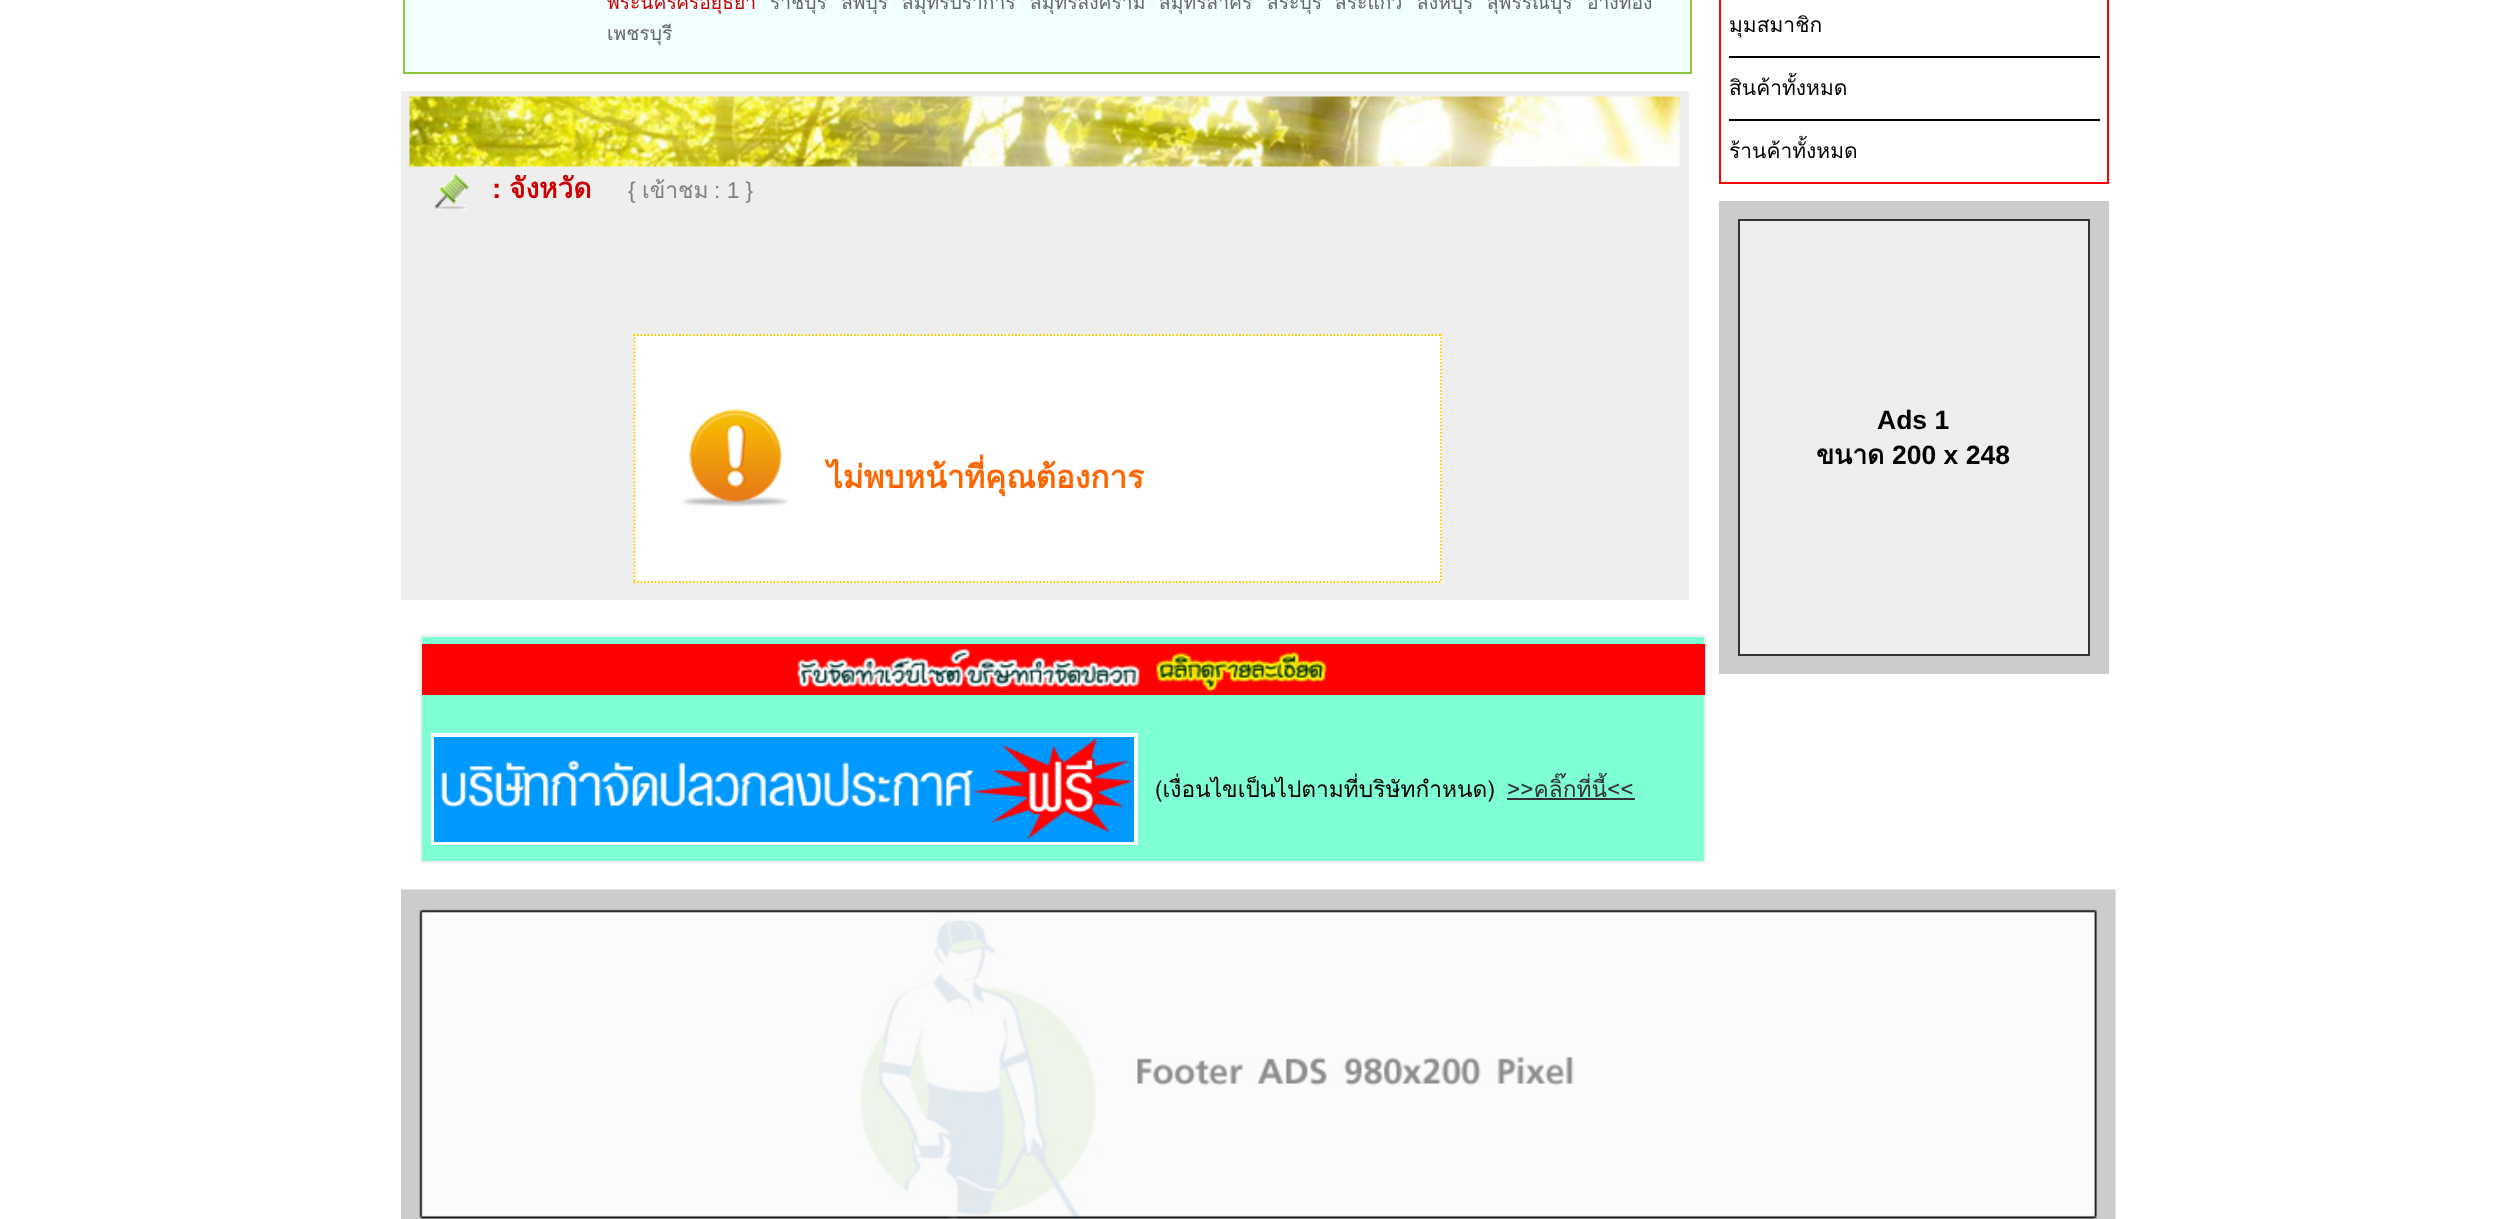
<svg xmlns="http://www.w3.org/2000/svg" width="2514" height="1219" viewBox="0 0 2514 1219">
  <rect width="100%" height="100%" fill="#fff"/>
  <path d="M404 -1h1287v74H404z" fill="#f0ffff" stroke="#8ec73c" stroke-width="2"/>
  <path d="M401 91h1288v509H401z" fill="#eee"/>
  <image x="409" y="96" width="1271" height="71" href="img/1.png"/>
  <image x="434" y="173" width="36" height="38" href="img/2.png"/>
  <path d="M634 334h808v249H634z" fill="#fff"/>
  <image x="682" y="409" width="106" height="98" href="img/3.png"/>
  <path d="M633.5 335H1442" fill="none" stroke="#fc0" stroke-width="1.8" stroke-dasharray="1.75 1.75"/>
  <path d="M1441 334V583" fill="none" stroke="#fc0" stroke-width="1.8" stroke-dasharray="1.75 1.75"/>
  <path d="M633.5 582H1442" fill="none" stroke="#fc0" stroke-width="1.8" stroke-dasharray="1.75 1.75"/>
  <path d="M634.5 334V583" fill="none" stroke="#fc0" stroke-width="1.8" stroke-dasharray="1.75 1.75"/>
  <path d="M421 636h1284v226H421z" fill="#7fffd4" stroke="#eee" stroke-width="2"/>
  <path d="M422 644h1283v51H422z" fill="#f00"/>
  <image x="797" y="649" width="530" height="43" href="img/4.png"/>
  <path d="M433 735h703v108H433z" fill="none" stroke="#fff" stroke-width="4"/>
  <image x="434" y="737" width="700" height="105" href="img/5.png"/>
  <path d="M1507 798h128v2H1507z" fill="#333"/>
  <path d="M1720 -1h388v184H1720z" fill="none" stroke="#f00" stroke-width="2"/>
  <path d="M1729 56h371v2H1729z" fill="#000"/>
  <path d="M1729 119h371v2H1729z" fill="#000"/>
  <path d="M1719 201h390v473H1719z" fill="#ccc"/>
  <path d="M1739 220h350v435H1739z" fill="#eee" stroke="#333" stroke-width="2"/>
  <image x="401" y="889" width="1715" height="330" href="img/6.png"/>
  <text x="607" y="9" font-family="Loma" font-size="19.25" fill="#c00">พระนครศรีอยุธยา</text>
  <g font-family="Loma" font-size="19.25" fill="#666">
    <text x="770" y="9">ราชบุรี</text>
    <text x="841" y="9">ลพบุรี</text>
    <text x="902" y="9">สมุทรปราการ</text>
    <text x="1030" y="9">สมุทรสงคราม</text>
    <text x="1159" y="9">สมุทรสาคร</text>
    <text x="1267" y="9">สระบุรี</text>
    <text x="1335" y="9">สระแก้ว</text>
    <text x="1417" y="9">สิงห์บุรี</text>
    <text x="1487" y="9">สุพรรณบุรี</text>
    <text x="1587" y="9">อ่างทอง</text>
    <text x="607" y="40">เพชรบุรี</text>
  </g>
  <text x="492" y="198" font-family="Liberation Sans" font-size="28" font-weight="bold" fill="#c00">:</text>
  <text x="509" y="198" font-family="Loma" font-size="28" font-weight="bold" fill="#c00">จังหวัด</text>
  <text x="628" y="198" font-family="Liberation Sans" font-size="22.75" fill="#808080">{</text>
  <text x="642" y="198" font-family="Loma" font-size="22.75" fill="#808080">เข้าชม</text>
  <text x="714" y="198" font-family="Liberation Sans" font-size="22.75" fill="#808080">: 1 }</text>
  <text x="827" y="488" font-family="Loma" font-size="31.5" font-weight="bold" fill="#f60">ไม่พบหน้าที่คุณต้องการ</text>
  <text x="1155" y="797" font-family="Loma" font-size="22.75" fill="#000">(เงื่อนไขเป็นไปตามที่บริษัทกำหนด)</text>
  <text x="1507" y="797" font-family="Loma" font-size="22.75" fill="#333">&gt;&gt;คลิ๊กที่นี้&lt;&lt;</text>
  <g font-family="Loma" font-size="21" fill="#000">
    <text x="1729" y="32">มุมสมาชิก</text>
    <text x="1729" y="95">สินค้าทั้งหมด</text>
    <text x="1729" y="158">ร้านค้าทั้งหมด</text>
  </g>
  <text x="1877" y="429" font-family="Liberation Sans" font-size="26.5" font-weight="bold" fill="#000">Ads 1</text>
  <text x="1816" y="464" font-family="Loma" font-size="26.5" font-weight="bold" fill="#000">ขนาด</text>
  <text x="1892" y="464" font-family="Liberation Sans" font-size="26.5" font-weight="bold" fill="#000">200 x 248</text>
</svg>
